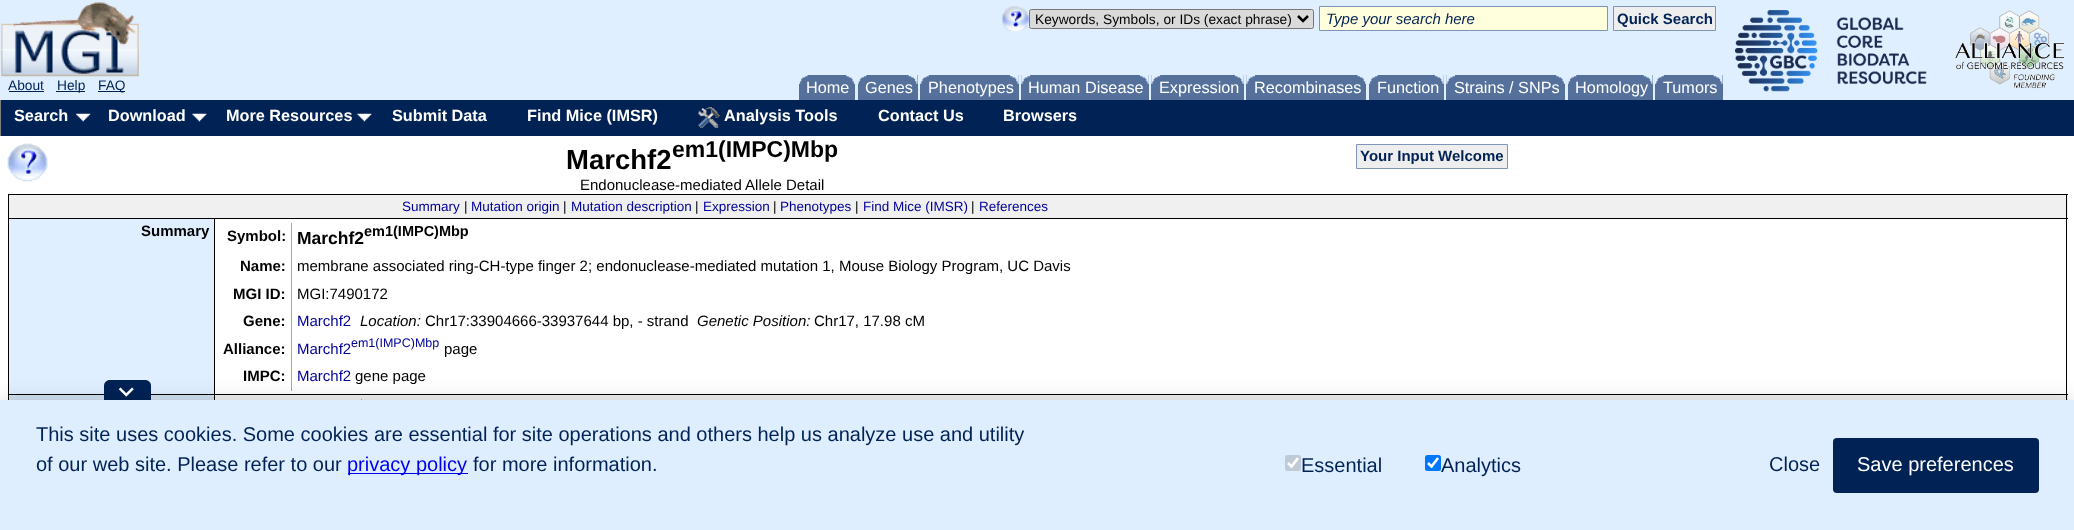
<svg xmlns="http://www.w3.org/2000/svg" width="2074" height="530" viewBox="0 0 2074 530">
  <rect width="100%" height="100%" fill="#fff"/>
  <path d="M0 0h2074v100H0z" fill="#dfefff"/>
  <image x="1002" y="6" width="27" height="26" href="img/1.png"/>
  <rect x="1029.5" y="9.5" width="284" height="19" rx="2" fill="#dadada" stroke="#767676"/>
  <path d="M1298 16L1303 21L1308 16" fill="none" stroke="#000" stroke-width="2.5"/>
  <path d="M1319.5 6.5h288v24H1319.5z" fill="#ffd" stroke="#7d95b9"/>
  <path d="M1613.5 6.5h102v24H1613.5z" fill="#eee" stroke="#7d95b9"/>
  <image x="1735" y="10" width="192" height="82" href="img/2.png"/>
  <image x="1954" y="10" width="111" height="79" href="img/3.png"/>
  <image x="1" y="2" width="138" height="75" href="img/4.png"/>
  <path d="M9 91h35v1H9z" fill="#025"/>
  <path d="M56 91h29v1H56z" fill="#025"/>
  <path d="M98 91h27v1H98z" fill="#025"/>
  <path d="M799 75h56v25H799z" fill="#54709b"/>
  <image x="799" y="75" width="9" height="9" href="img/5.png"/>
  <image x="846" y="75" width="9" height="9" href="img/6.png"/>
  <path d="M858 75h60v25H858z" fill="#54709b"/>
  <image x="858" y="75" width="9" height="9" href="img/7.png"/>
  <image x="908" y="75" width="10" height="9" href="img/8.png"/>
  <path d="M920 75h99v25H920z" fill="#54709b"/>
  <image x="920" y="75" width="9" height="9" href="img/9.png"/>
  <image x="1009" y="75" width="10" height="9" href="img/10.png"/>
  <path d="M1021 75h128v25H1021z" fill="#54709b"/>
  <image x="1021" y="75" width="10" height="9" href="img/11.png"/>
  <image x="1139" y="75" width="10" height="9" href="img/12.png"/>
  <path d="M1151 75h93v25H1151z" fill="#54709b"/>
  <image x="1151" y="75" width="10" height="9" href="img/11.png"/>
  <image x="1234" y="75" width="10" height="9" href="img/12.png"/>
  <path d="M1246 75h120v25H1246z" fill="#54709b"/>
  <image x="1246" y="75" width="10" height="9" href="img/11.png"/>
  <image x="1357" y="75" width="9" height="9" href="img/13.png"/>
  <path d="M1369 75h75v25H1369z" fill="#54709b"/>
  <image x="1369" y="75" width="9" height="9" href="img/14.png"/>
  <image x="1434" y="75" width="10" height="9" href="img/12.png"/>
  <path d="M1446 75h119v25H1446z" fill="#54709b"/>
  <image x="1446" y="75" width="10" height="9" href="img/11.png"/>
  <image x="1556" y="75" width="9" height="9" href="img/15.png"/>
  <path d="M1568 75h85v25H1568z" fill="#54709b"/>
  <image x="1568" y="75" width="9" height="9" href="img/7.png"/>
  <image x="1643" y="75" width="10" height="9" href="img/8.png"/>
  <path d="M1655 75h68v25H1655z" fill="#54709b"/>
  <image x="1655" y="75" width="9" height="9" href="img/9.png"/>
  <image x="1713" y="75" width="10" height="9" href="img/8.png"/>
  <path d="M1 100h2073v36H1z" fill="#025"/>
  <path d="M0 100h1v36H0z" fill="#808080"/>
  <image x="76" y="113" width="15" height="9" href="img/16.png"/>
  <image x="192" y="113" width="15" height="9" href="img/17.png"/>
  <image x="357" y="113" width="15" height="9" href="img/18.png"/>
  <image x="698" y="107" width="22" height="21" href="img/19.png"/>
  <image x="7" y="143" width="41" height="39" href="img/20.png"/>
  <path d="M1356.5 144.5h151v24H1356.5z" fill="#eee" stroke="#7d95b9"/>
  <path d="M8 194h2060v1H8z" fill="#000"/>
  <path d="M9 195h2059v23H9z" fill="#f0f0f0"/>
  <path d="M215 395h1853v5H215z" fill="#f0f0f0"/>
  <path d="M2066 194h1v206H2066z" fill="#000"/>
  <path d="M8 194h1v206H8z" fill="#000"/>
  <path d="M9 219h205v175H9z" fill="#dfefff"/>
  <path d="M214 218h1854v1H214z" fill="#000"/>
  <path d="M214 394h1854v1H214z" fill="#000"/>
  <path d="M214 394h1v6H214z" fill="#000"/>
  <path d="M8 394h207v1H8z" fill="#000"/>
  <path d="M214 218h1v177H214z" fill="#000"/>
  <path d="M8 218h207v1H8z" fill="#000"/>
  <path d="M291 223h1v168H291z" fill="#a8a8a8"/>
  <path d="M9 395h205v5H9z" fill="#d0e0f0"/>
  <path d="M361 399h1v1H361z" fill="#a8a8a8"/>
  <path d="M110 380H145C148.5 380 151 382.5 151 386V400H104V386C104 382.5 106.5 380 110 380Z" fill="#025"/>
  <path d="M0 400h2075v130H0z" fill="#00000026" filter="blur(10px)"/>
  <image x="118" y="387" width="16" height="10" href="img/21.png"/>
  <path d="M0 400h2074v130H0z" fill="#deeeff"/>
  <path d="M348 473h120v1H348z" fill="#00e"/>
  <rect x="1285" y="455" width="16" height="16" rx="2.5" fill="#bfcad6"/>
  <path d="M1288 463L1291.5 466.5L1298 458" fill="none" stroke="#fff" stroke-width="2.6"/>
  <rect x="1425" y="455" width="16" height="16" rx="2.5" fill="#0075ff"/>
  <path d="M1428 463L1431.5 466.5L1438 458" fill="none" stroke="#fff" stroke-width="2.6"/>
  <rect x="1833" y="438" width="206" height="55" rx="4" fill="#025"/>
  <text x="1035" y="24" font-family="Liberation Sans" font-size="13.75" fill="#000001">Keywords, Symbols, or IDs (exact phrase)</text>
  <text x="1326" y="24" font-family="Liberation Sans" font-size="15" font-style="italic" fill="#025">Type your search here</text>
  <text x="1617" y="24" font-family="Liberation Sans" font-size="15" font-weight="bold" fill="#025">Quick Search</text>
  <g font-family="Liberation Sans" font-size="13.75" fill="#025">
    <text x="8" y="90">About</text>
    <text x="57" y="90">Help</text>
    <text x="98" y="90">FAQ</text>
  </g>
  <g font-family="Liberation Sans" font-size="16.25" fill="#fff">
    <text x="806" y="93">Home</text>
    <text x="865" y="93">Genes</text>
    <text x="928" y="93">Phenotypes</text>
    <text x="1028" y="93">Human Disease</text>
    <text x="1159" y="93">Expression</text>
    <text x="1254" y="93">Recombinases</text>
    <text x="1377" y="93">Function</text>
    <text x="1454" y="93">Strains / SNPs</text>
    <text x="1575" y="93">Homology</text>
    <text x="1663" y="93">Tumors</text>
  </g>
  <g font-family="Liberation Sans" font-size="16.25" font-weight="bold" fill="#fff">
    <text x="14" y="121">Search</text>
    <text x="108" y="121">Download</text>
    <text x="226" y="121">More Resources</text>
    <text x="392" y="121">Submit Data</text>
    <text x="527" y="121">Find Mice (IMSR)</text>
    <text x="724" y="121">Analysis Tools</text>
    <text x="878" y="121">Contact Us</text>
    <text x="1003" y="121">Browsers</text>
  </g>
  <text x="566" y="169" font-family="Liberation Sans" font-size="27.5" font-weight="bold" fill="#000001">Marchf2</text>
  <text x="672" y="157" font-family="Liberation Sans" font-size="23" font-weight="bold" fill="#000001">em1(IMPC)Mbp</text>
  <text x="580" y="190" font-family="Liberation Sans" font-size="15" fill="#000001">Endonuclease-mediated Allele Detail</text>
  <text x="1360" y="161" font-family="Liberation Sans" font-size="15" font-weight="bold" fill="#025">Your Input Welcome</text>
  <text x="402" y="211" font-family="Liberation Sans" font-size="13.5" fill="#009">Summary</text>
  <text x="464" y="211" font-family="Liberation Sans" font-size="13.5" fill="#000001">|</text>
  <text x="471" y="211" font-family="Liberation Sans" font-size="13.5" fill="#009">Mutation origin</text>
  <text x="563" y="211" font-family="Liberation Sans" font-size="13.5" fill="#000001">|</text>
  <text x="571" y="211" font-family="Liberation Sans" font-size="13.5" fill="#009">Mutation description</text>
  <text x="695" y="211" font-family="Liberation Sans" font-size="13.5" fill="#000001">|</text>
  <text x="703" y="211" font-family="Liberation Sans" font-size="13.5" fill="#009">Expression</text>
  <text x="773" y="211" font-family="Liberation Sans" font-size="13.5" fill="#000001">|</text>
  <text x="780" y="211" font-family="Liberation Sans" font-size="13.5" fill="#009">Phenotypes</text>
  <text x="855" y="211" font-family="Liberation Sans" font-size="13.5" fill="#000001">|</text>
  <text x="863" y="211" font-family="Liberation Sans" font-size="13.5" fill="#009">Find Mice (IMSR)</text>
  <text x="971" y="211" font-family="Liberation Sans" font-size="13.5" fill="#000001">|</text>
  <text x="979" y="211" font-family="Liberation Sans" font-size="13.5" fill="#009">References</text>
  <g font-family="Liberation Sans" font-size="15" font-weight="bold" fill="#000001">
    <text x="141" y="236">Summary</text>
    <text x="227" y="241">Symbol:</text>
  </g>
  <text x="297" y="244" font-family="Liberation Sans" font-size="17.5" font-weight="bold" fill="#000001">Marchf2</text>
  <text x="364" y="236" font-family="Liberation Sans" font-size="14.5" font-weight="bold" fill="#000001">em1(IMPC)Mbp</text>
  <text x="240" y="271" font-family="Liberation Sans" font-size="15" font-weight="bold" fill="#000001">Name:</text>
  <text x="297" y="271" font-family="Liberation Sans" font-size="15" fill="#000001">membrane associated ring-CH-type finger 2; endonuclease-mediated mutation 1, Mouse Biology Program, UC Davis</text>
  <text x="233" y="299" font-family="Liberation Sans" font-size="15" font-weight="bold" fill="#000001">MGI ID:</text>
  <text x="297" y="299" font-family="Liberation Sans" font-size="15" fill="#000001">MGI:7490172</text>
  <text x="243" y="326" font-family="Liberation Sans" font-size="15" font-weight="bold" fill="#000001">Gene:</text>
  <text x="297" y="326" font-family="Liberation Sans" font-size="15" fill="#009">Marchf2</text>
  <text x="360" y="326" font-family="Liberation Sans" font-size="15" font-style="italic" fill="#000001">Location:</text>
  <text x="425" y="326" font-family="Liberation Sans" font-size="15" fill="#000001">Chr17:33904666-33937644 bp, - strand</text>
  <text x="697" y="326" font-family="Liberation Sans" font-size="15" font-style="italic" fill="#000001">Genetic Position:</text>
  <text x="814" y="326" font-family="Liberation Sans" font-size="15" fill="#000001">Chr17, 17.98 cM</text>
  <text x="223" y="354" font-family="Liberation Sans" font-size="15" font-weight="bold" fill="#000001">Alliance:</text>
  <text x="297" y="354" font-family="Liberation Sans" font-size="15" fill="#009">Marchf2</text>
  <text x="351" y="347" font-family="Liberation Sans" font-size="12.5" fill="#009">em1(IMPC)Mbp</text>
  <text x="444" y="354" font-family="Liberation Sans" font-size="15" fill="#000001">page</text>
  <text x="243" y="381" font-family="Liberation Sans" font-size="15" font-weight="bold" fill="#000001">IMPC:</text>
  <text x="297" y="381" font-family="Liberation Sans" font-size="15" fill="#009">Marchf2</text>
  <text x="355" y="381" font-family="Liberation Sans" font-size="15" fill="#000001">gene page</text>
  <g font-family="Liberation Sans" font-size="20" fill="#025">
    <text x="36" y="441">This site uses cookies. Some cookies are essential for site operations and others help us analyze use and utility</text>
    <text x="36" y="471">of our web site. Please refer to our</text>
  </g>
  <text x="347" y="471" font-family="Liberation Sans" font-size="20" fill="#00e">privacy policy</text>
  <g font-family="Liberation Sans" font-size="20" fill="#025">
    <text x="473" y="471">for more information.</text>
    <text x="1301" y="472">Essential</text>
    <text x="1441" y="472">Analytics</text>
    <text x="1769" y="471">Close</text>
  </g>
  <text x="1857" y="471" font-family="Liberation Sans" font-size="20" fill="#fff">Save preferences</text>
</svg>
